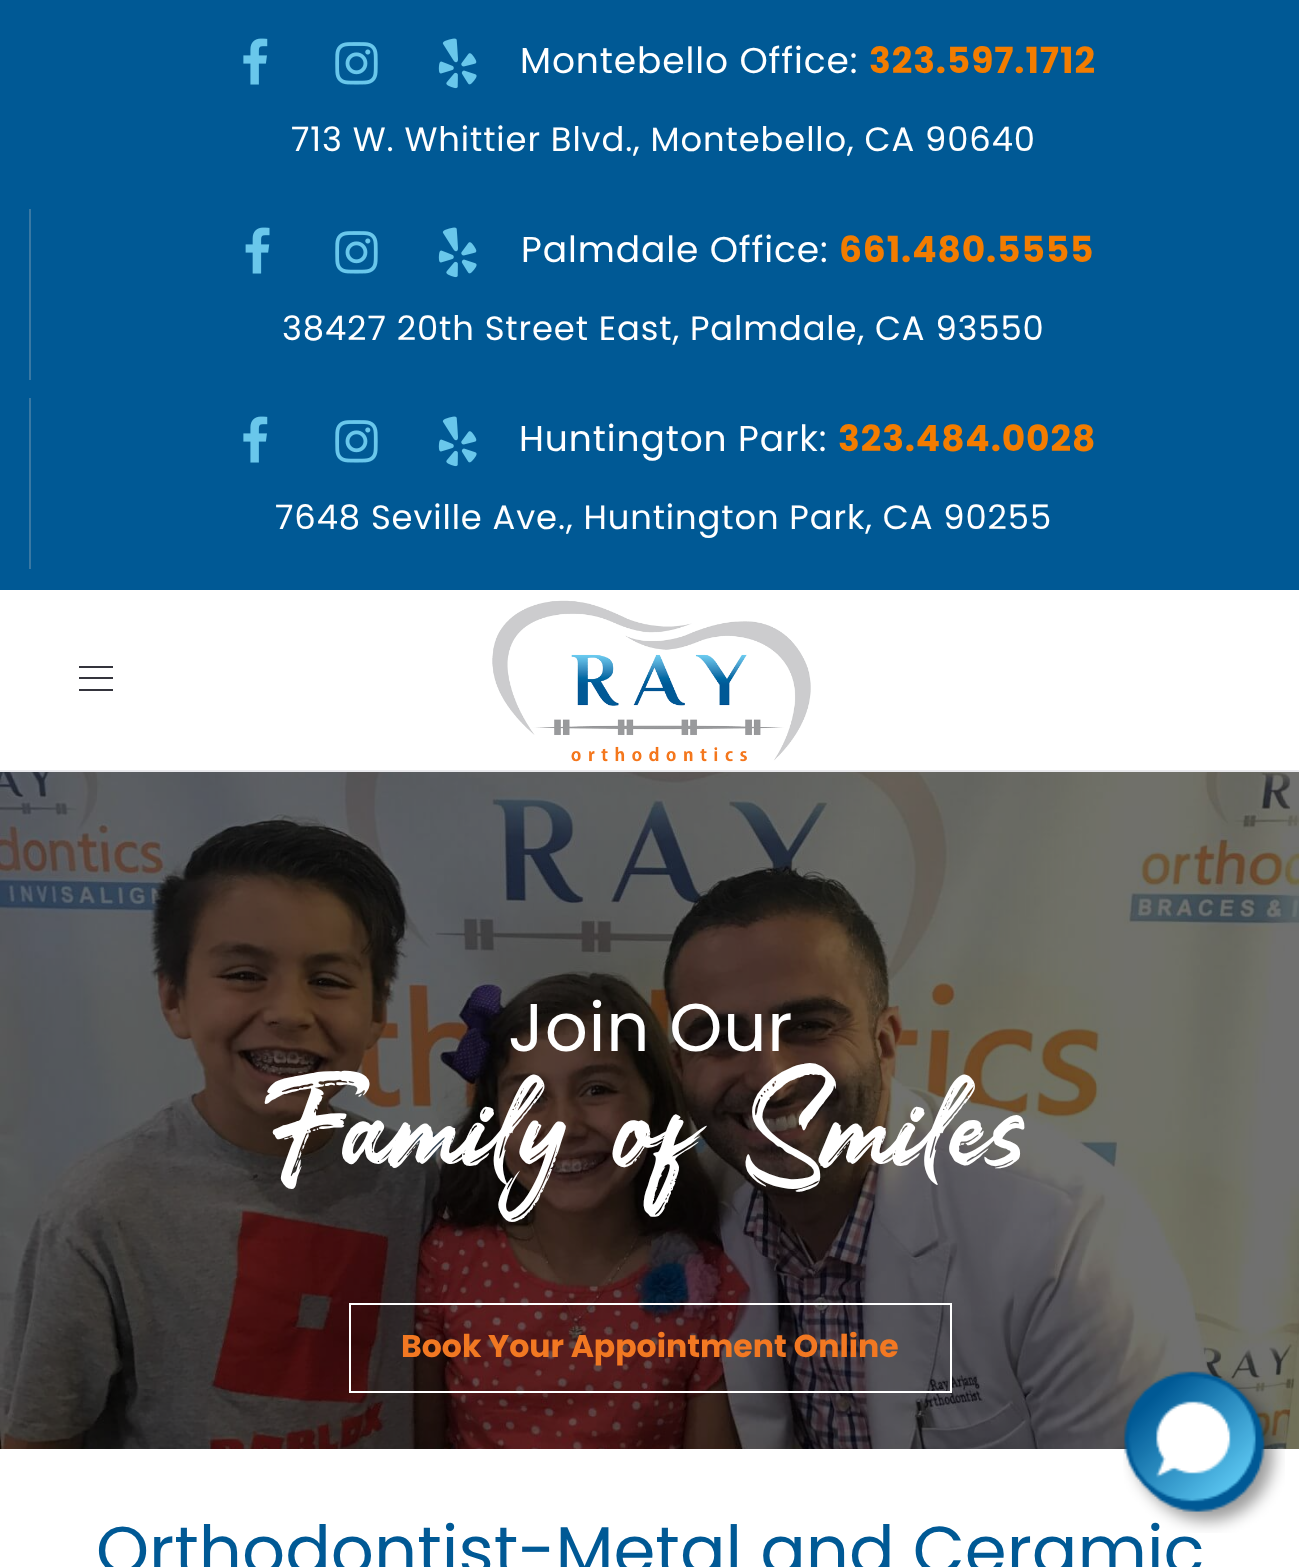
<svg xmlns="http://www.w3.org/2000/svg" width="1299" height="1567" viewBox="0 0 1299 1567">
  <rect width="100%" height="100%" fill="#fff"/>
  <path d="M0 770h1299v2H0z" fill="#e8e8ec"/>
  <path d="M0 0h1299v590H0z" fill="#005995"/>
  <image x="243" y="38" width="25" height="47" href="img/1.png"/>
  <image x="335" y="42" width="43" height="43" href="img/2.png"/>
  <image x="438" y="38" width="39" height="51" href="img/3.png"/>
  <path d="M29 209h2v171H29z" fill="#3978a3"/>
  <image x="245" y="227" width="25" height="47" href="img/4.png"/>
  <image x="335" y="231" width="43" height="43" href="img/2.png"/>
  <image x="438" y="227" width="39" height="51" href="img/5.png"/>
  <path d="M29 398h2v171H29z" fill="#3978a3"/>
  <image x="243" y="416" width="25" height="47" href="img/1.png"/>
  <image x="335" y="420" width="43" height="43" href="img/2.png"/>
  <image x="438" y="416" width="39" height="51" href="img/5.png"/>
  <path d="M79 689h34v2H79z" fill="#34343c"/>
  <path d="M79 666h34v2H79z" fill="#34343c"/>
  <path d="M79 677h34v2H79z" fill="#34343c"/>
  <image x="492" y="600" width="319" height="162" href="img/6.png"/>
  <image x="0" y="772" width="1299" height="677" href="img/7.png"/>
  <path d="M350 1304h601v88H350z" fill="none" stroke="#fff" stroke-width="2"/>
  <text x="520" y="73" font-family="Poppins" font-size="36" letter-spacing="0.9" fill="#fff">Montebello Office:</text>
  <text x="869" y="73" font-family="Poppins" font-size="36" font-weight="bold" letter-spacing="0.9" fill="#f37c00">323.597.1712</text>
  <text x="291" y="151" font-family="Poppins" font-size="33.75" letter-spacing="0.9" fill="#fff">713 W. Whittier Blvd., Montebello, CA 90640</text>
  <text x="521" y="262" font-family="Poppins" font-size="36" letter-spacing="0.9" fill="#fff">Palmdale Office:</text>
  <text x="839" y="262" font-family="Poppins" font-size="36" font-weight="bold" letter-spacing="0.9" fill="#f37c00">661.480.5555</text>
  <text x="282" y="340" font-family="Poppins" font-size="33.75" letter-spacing="0.9" fill="#fff">38427 20th Street East, Palmdale, CA 93550</text>
  <text x="519" y="451" font-family="Poppins" font-size="36" letter-spacing="0.9" fill="#fff">Huntington Park:</text>
  <text x="838" y="451" font-family="Poppins" font-size="36" font-weight="bold" letter-spacing="0.9" fill="#f37c00">323.484.0028</text>
  <text x="275" y="529" font-family="Poppins" font-size="33.75" letter-spacing="0.9" fill="#fff">7648 Seville Ave., Huntington Park, CA 90255</text>
  <text x="508" y="1051" font-family="Poppins" font-size="67.5" letter-spacing="0.9" fill="#fff">Join Our</text>
  <text x="266" y="1163" font-family="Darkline" font-size="157.5" fill="#fff">Family of Smiles</text>
  <text x="401" y="1357" font-family="Poppins" font-size="31.5" font-weight="bold" fill="#f27822">Book Your Appointment Online</text>
  <text x="96" y="1574" font-family="Poppins" font-size="67.5" fill="#005995">Orthodontist-Metal and Ceramic</text>
  <image x="1123" y="1371" width="162" height="162" href="img/8.png"/>
</svg>
